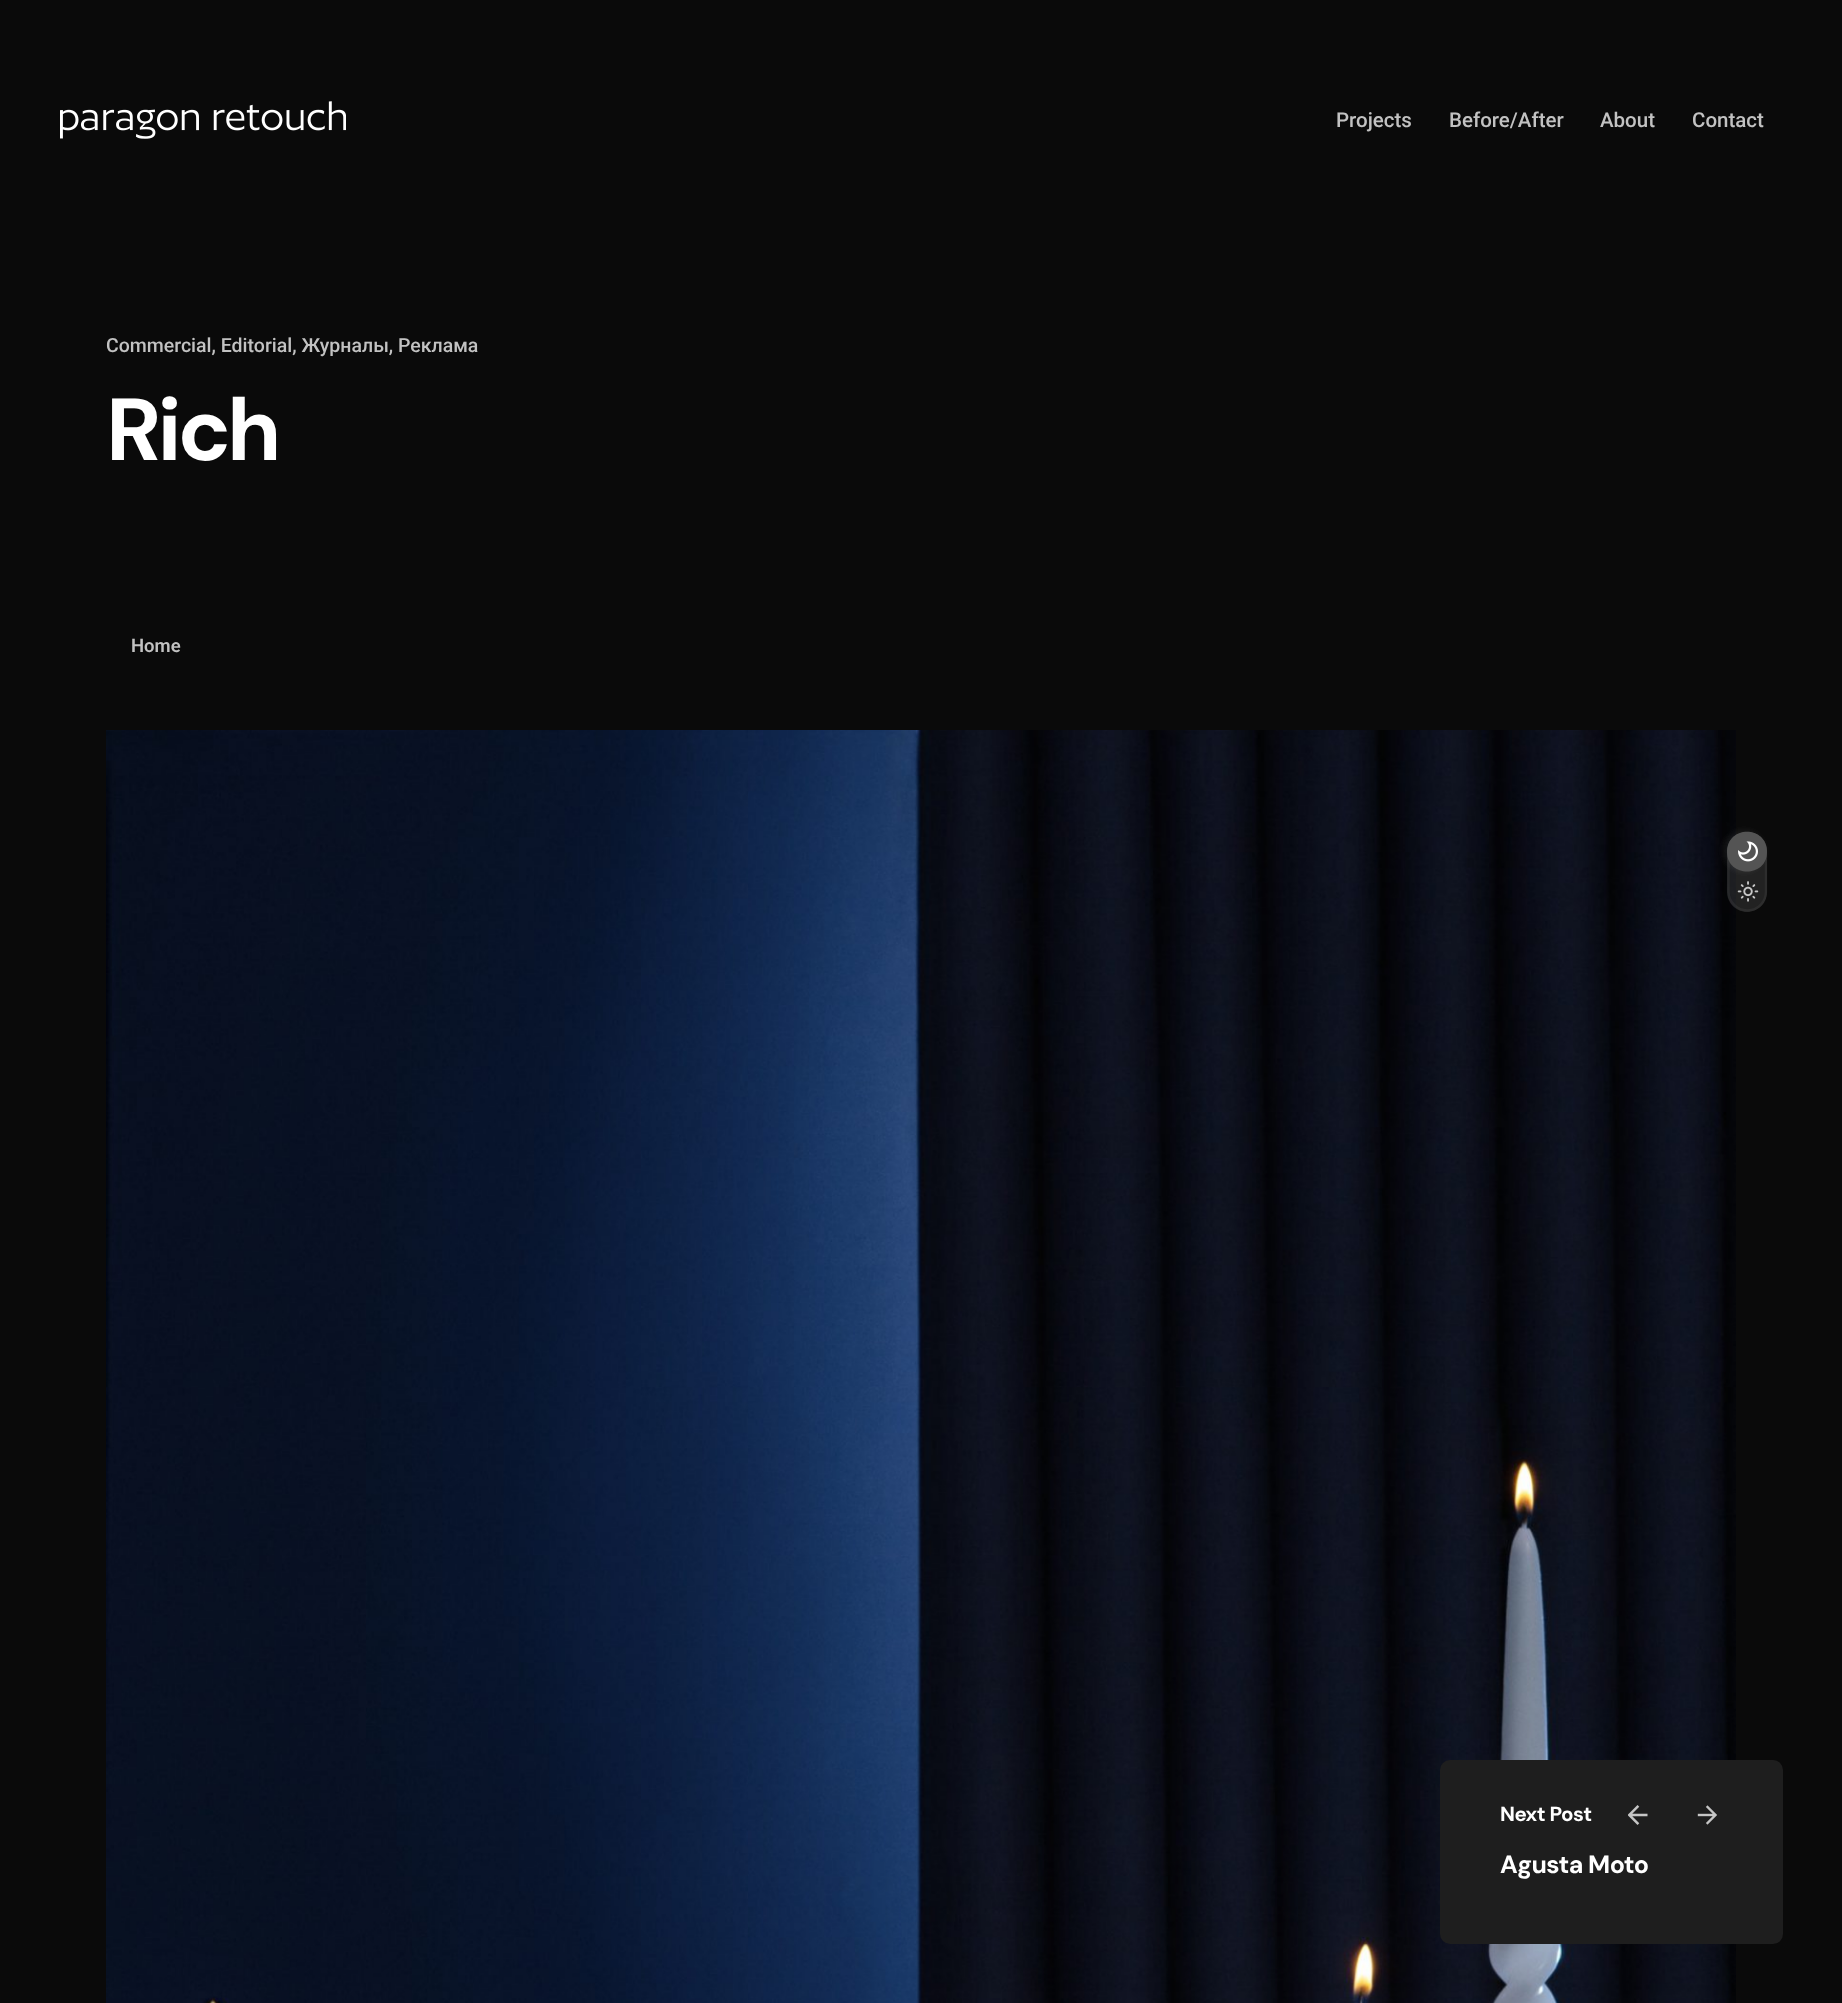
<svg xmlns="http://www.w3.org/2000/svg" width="1842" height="2003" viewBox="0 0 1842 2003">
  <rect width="100%" height="100%" fill="#0a0a0a"/>
  <image x="60" y="101" width="286" height="38" href="img/1.png"/>
  <image x="106" y="730" width="1630" height="1273" href="img/2.png"/>
  <rect x="1440" y="1760" width="343" height="184" rx="10" fill="#1e1e1e"/>
  <image x="1628" y="1805" width="20" height="20" href="img/3.png"/>
  <image x="1697" y="1805" width="20" height="20" href="img/4.png"/>
  <path d="M1727 892V852C1727 840 1736 832 1747 832C1758 832 1767 840 1767 852V892C1767 903 1758 912 1747 912C1736 912 1727 903 1727 892Z" fill="#ffffff1a"/>
  <path d="M1728.5 891.5V851.5C1728.5 841 1737 833 1747.5 833C1758 833 1766 841 1766 851.5V891.5C1766 902 1758 910.5 1747.5 910.5C1737 910.5 1728.5 902 1728.5 891.5Z" fill="none" stroke="#ffffff0d" stroke-width="2.5"/>
  <image x="1737" y="881" width="22" height="21" href="img/6.png"/>
  <rect x="1724" y="831" width="40" height="40" rx="20" fill="#ffffff0d" filter="blur(4px)"/>
  <rect x="1724" y="831" width="40" height="40" rx="20" fill="#ffffff0d" filter="blur(4px)"/>
  <path d="M1727 852C1727 825 1767 825 1767 852C1767 878 1727 878 1727 852Z" fill="#545454"/>
  <image x="1738" y="841" width="20" height="21" href="img/5.png"/>
  <g font-family="Roboto" font-size="20.5" font-weight="500" fill="#c2c2c2">
    <text x="1336" y="127">Projects</text>
    <text x="1449" y="127">Before/After</text>
    <text x="1600" y="127">About</text>
    <text x="1692" y="127">Contact</text>
  </g>
  <text x="106" y="352" font-family="Roboto" font-size="19.5" font-weight="500" fill="#c2c2c2">Commercial, Editorial, Журналы, Реклама</text>
  <text x="106" y="460" font-family="DM Sans" font-size="88" font-weight="bold" letter-spacing="-4" fill="#fff">Rich</text>
  <text x="131" y="652" font-family="Roboto" font-size="18.5" font-weight="600" fill="#c2c2c2">Home</text>
  <text x="1500" y="1821" font-family="DM Sans" font-size="20.5" font-weight="bold" letter-spacing="-0.5" fill="#fff">Next Post</text>
  <text x="1500" y="1873" font-family="DM Sans" font-size="25" font-weight="bold" letter-spacing="-0.6" fill="#fff">Agusta Moto</text>
</svg>
